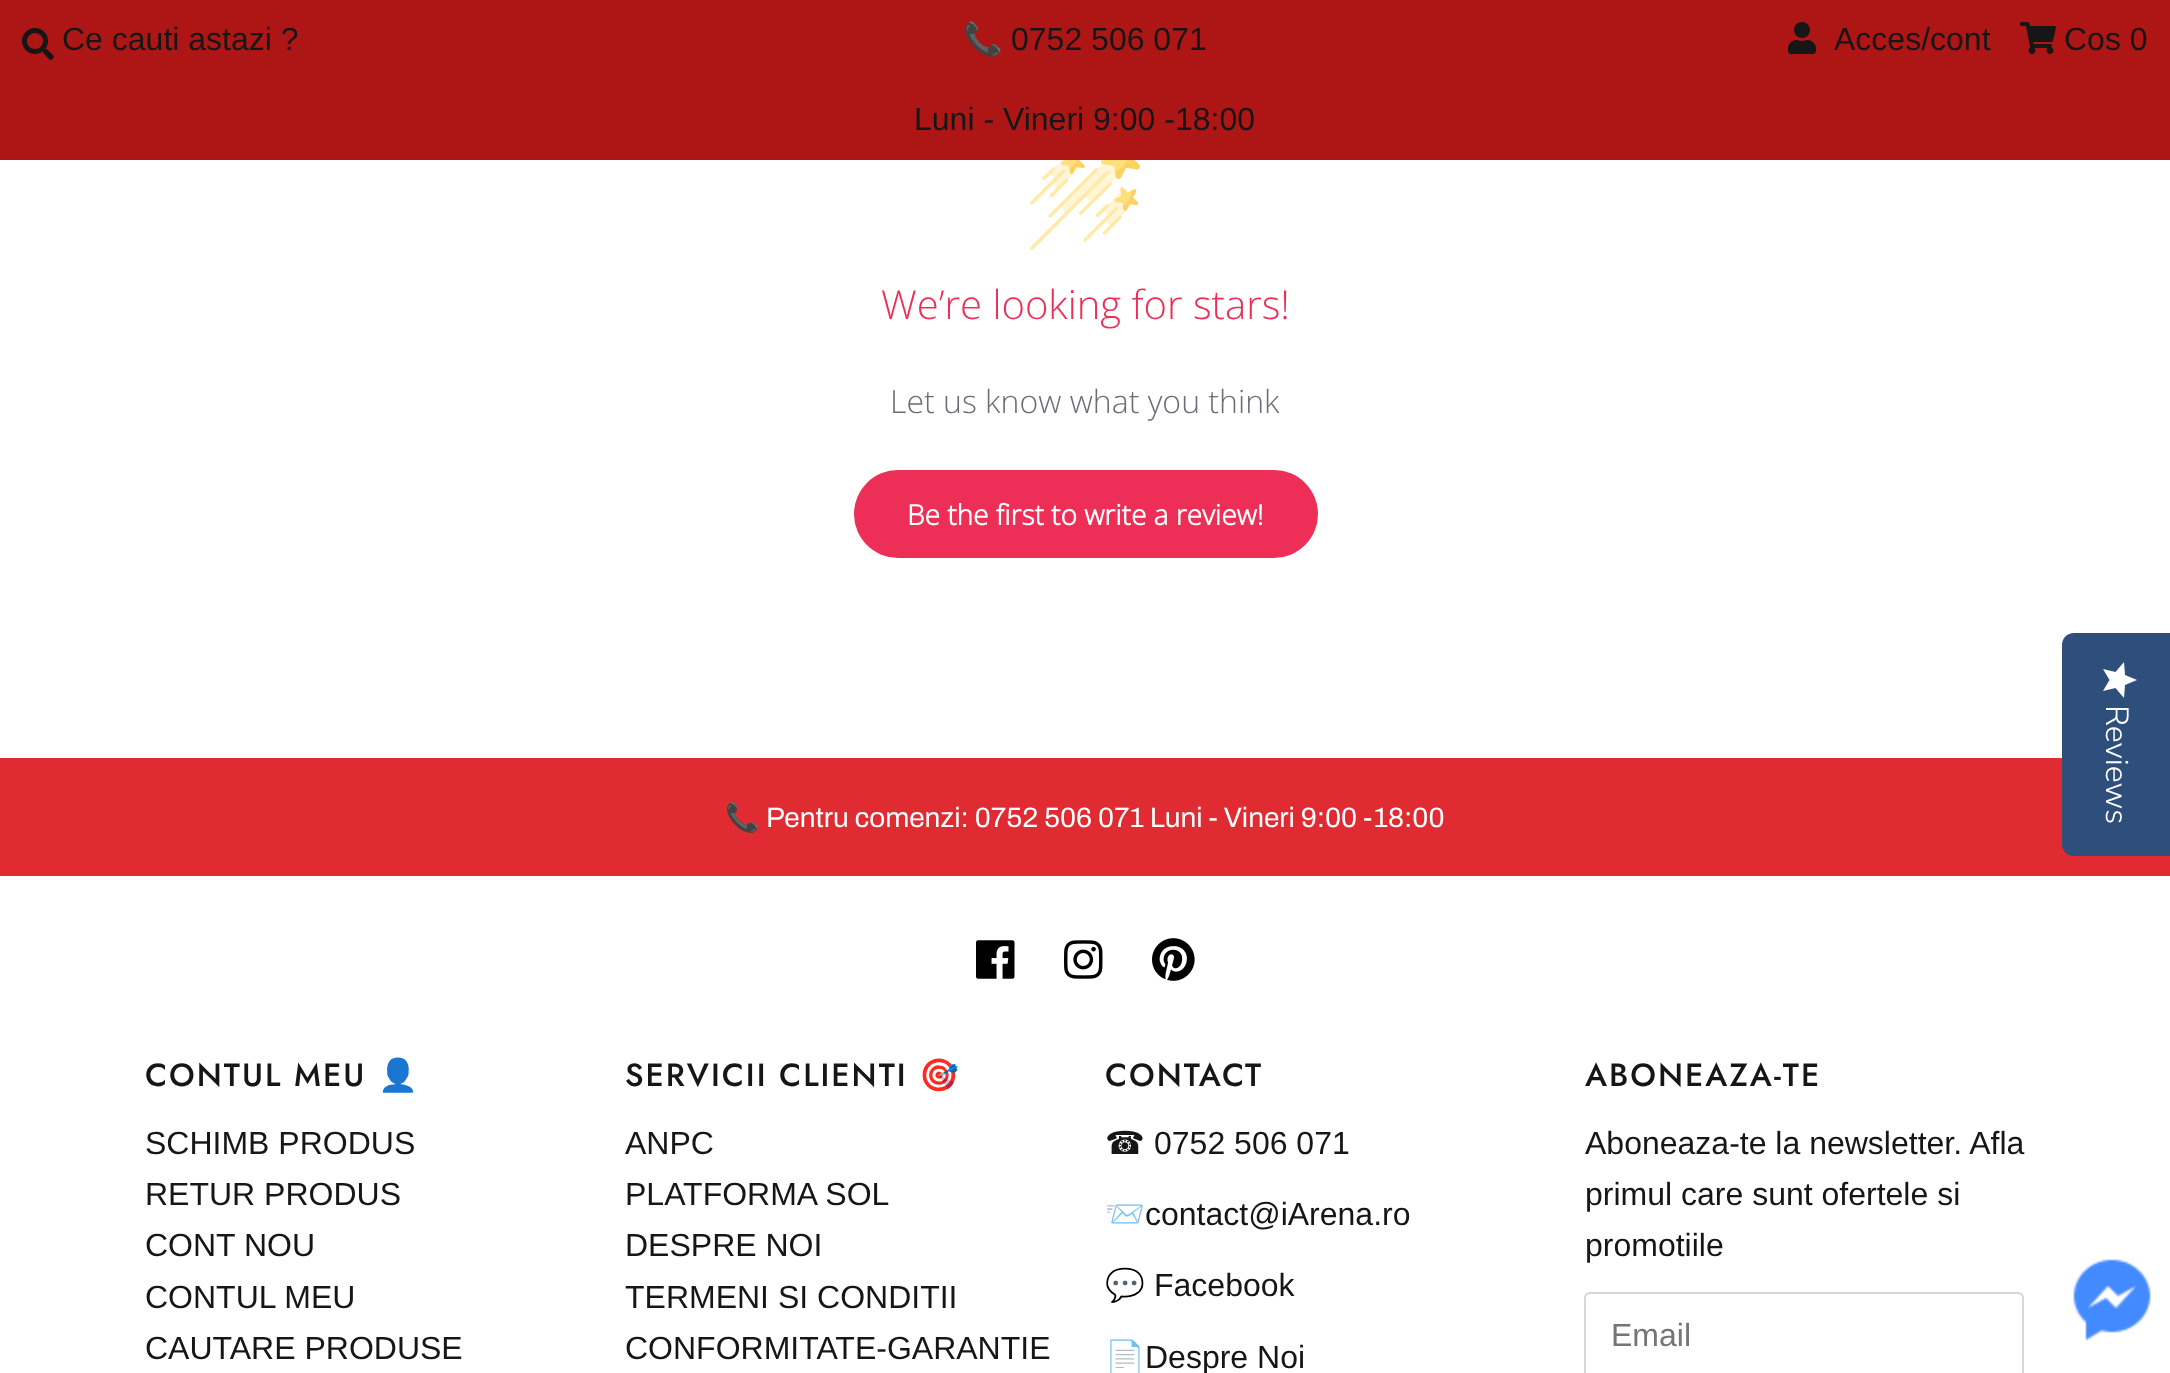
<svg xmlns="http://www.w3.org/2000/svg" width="2170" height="1373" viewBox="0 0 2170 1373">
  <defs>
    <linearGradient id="g1" gradientUnits="userSpaceOnUse" x1="2137" y1="662" x2="2137" y2="698"><stop offset="1" stop-color="#fff"/><stop offset="1" stop-color="#eaeaea"/></linearGradient>
  </defs>
  <rect width="100%" height="100%" fill="#fff"/>
  <path d="M0 0h2170v160H0z" fill="#ae1616"/>
  <image x="22" y="28" width="32" height="32" href="img/1.png"/>
  <image x="1788" y="22" width="28" height="32" href="img/2.png"/>
  <image x="2020" y="22" width="36" height="32" href="img/3.png"/>
  <image x="1030" y="160" width="110" height="90" href="img/4.png"/>
  <rect x="854" y="470" width="464" height="88" rx="44" fill="#ed2f58"/>
  <path d="M0 758h2170v118H0z" fill="#e12b33"/>
  <image x="976" y="940" width="39" height="39" href="img/5.png"/>
  <image x="1064" y="940" width="39" height="39" href="img/6.png"/>
  <image x="1152" y="938" width="43" height="43" href="img/7.png"/>
  <rect x="1585" y="1293" width="438" height="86" rx="5" fill="none" stroke="#d5d5d5" stroke-width="2"/>
  <path d="M2170 633V856H2074C2067 856 2062 851 2062 844V645C2062 638 2067 633 2074 633Z" fill="#2e4f7c"/>
  <path d="M2109.5 680L2103 691L2115.5 688L2124 698L2125 685L2137 680L2125 675L2124 662L2115.5 672L2103 669Z" fill="url(#g1)"/>
  <image x="2073" y="1259" width="78" height="82" href="img/8.png"/>
  <text x="62" y="50" font-family="Arimo" font-size="32" fill="#161616">Ce cauti astazi ?</text>
  <text x="963" y="50" font-family="Noto Color Emoji" font-size="32" fill="#161616">📞</text>
  <g font-family="Arimo" font-size="32" fill="#161616">
    <text x="1011" y="50">0752 506 071</text>
    <text x="914" y="130">Luni - Vineri 9:00 -18:00</text>
    <text x="1834" y="50">Acces/cont</text>
    <text x="2064" y="50">Cos 0</text>
  </g>
  <text x="881" y="319" font-family="Open Sans" font-size="40" font-weight="300" fill="#ed2f58">We’re looking for stars!</text>
  <text x="890" y="413" font-family="Open Sans" font-size="32" font-weight="300" fill="#6b6d76">Let us know what you think</text>
  <text x="907" y="525" font-family="Open Sans" font-size="28" font-weight="bold" fill="#fff">Be the first to write a review!</text>
  <text x="725" y="827" font-family="Noto Color Emoji" font-size="28" fill="#fff">📞</text>
  <text x="766" y="827" font-family="Archivo" font-size="28" fill="#fff">Pentru comenzi: 0752 506 071 Luni - Vineri 9:00 -18:00</text>
  <text x="145" y="1086" font-family="Jost" font-size="32" font-weight="500" letter-spacing="2" fill="#161616">CONTUL MEU</text>
  <text x="378" y="1086" font-family="Noto Color Emoji" font-size="32" letter-spacing="2" fill="#161616">👤</text>
  <g font-family="Arimo" font-size="32" fill="#161616">
    <text x="145" y="1154">SCHIMB PRODUS</text>
    <text x="145" y="1205">RETUR PRODUS</text>
    <text x="145" y="1256">CONT NOU</text>
    <text x="145" y="1308">CONTUL MEU</text>
    <text x="145" y="1359">CAUTARE PRODUSE</text>
  </g>
  <text x="625" y="1086" font-family="Jost" font-size="32" font-weight="500" letter-spacing="2" fill="#161616">SERVICII CLIENTI</text>
  <text x="919" y="1086" font-family="Noto Color Emoji" font-size="32" letter-spacing="2" fill="#161616">🎯</text>
  <g font-family="Arimo" font-size="32" fill="#161616">
    <text x="625" y="1154">ANPC</text>
    <text x="625" y="1205">PLATFORMA SOL</text>
    <text x="625" y="1256">DESPRE NOI</text>
    <text x="625" y="1308">TERMENI SI CONDITII</text>
    <text x="625" y="1359">CONFORMITATE-GARANTIE</text>
  </g>
  <text x="1105" y="1086" font-family="Jost" font-size="32" font-weight="500" letter-spacing="2" fill="#161616">CONTACT</text>
  <text x="1105" y="1154" font-family="DejaVu Sans" font-size="32" fill="#161616">☎</text>
  <text x="1154" y="1154" font-family="Arimo" font-size="32" fill="#161616">0752 506 071</text>
  <text x="1105" y="1225" font-family="Noto Color Emoji" font-size="32" fill="#161616">📨</text>
  <text x="1145" y="1225" font-family="Arimo" font-size="32" fill="#161616">contact@iArena.ro</text>
  <text x="1105" y="1296" font-family="Noto Color Emoji" font-size="32" fill="#161616">💬</text>
  <text x="1154" y="1296" font-family="Arimo" font-size="32" fill="#161616">Facebook</text>
  <text x="1105" y="1368" font-family="Noto Color Emoji" font-size="32" fill="#161616">📄</text>
  <text x="1145" y="1368" font-family="Arimo" font-size="32" fill="#161616">Despre Noi</text>
  <text x="1585" y="1086" font-family="Jost" font-size="32" font-weight="500" letter-spacing="2" fill="#161616">ABONEAZA-TE</text>
  <g font-family="Arimo" font-size="32" fill="#161616">
    <text x="1585" y="1154">Aboneaza-te la newsletter. Afla</text>
    <text x="1585" y="1205">primul care sunt ofertele si</text>
    <text x="1585" y="1256">promotiile</text>
  </g>
  <text x="1611" y="1346" font-family="Liberation Sans" font-size="32" fill="#757575">Email</text>
  <text x="2106" y="705" transform="rotate(90 2106 705)" font-family="Nunito Sans" font-size="32" font-weight="300" fill="#fff">Reviews</text>
</svg>
